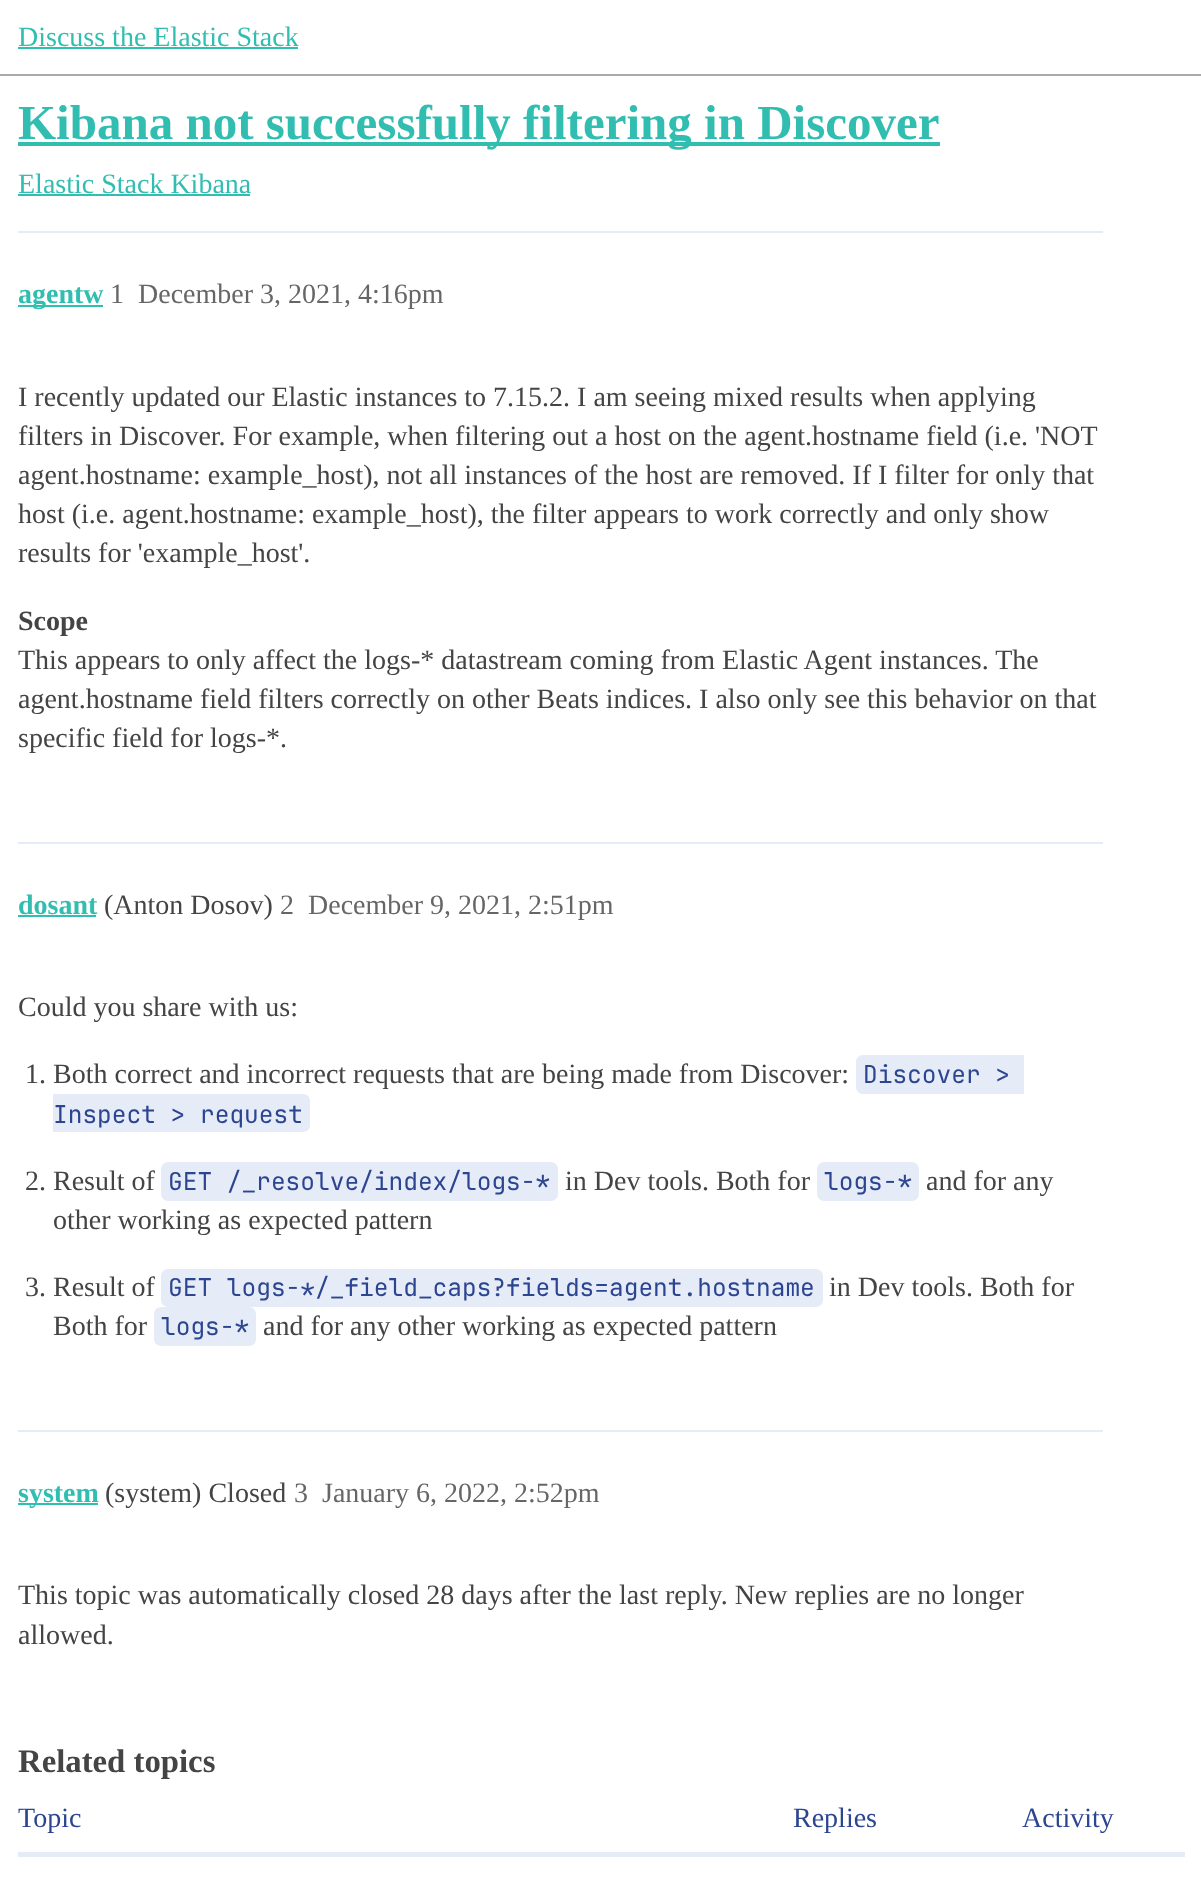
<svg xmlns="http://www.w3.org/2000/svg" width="1201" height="1895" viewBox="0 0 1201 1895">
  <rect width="100%" height="100%" fill="#fff"/>
  <path d="M0 74h1201v2H0z" fill="#ababab"/>
  <path d="M18 47h280v2H18z" fill="#31beb1"/>
  <path d="M18 142h922v4H18z" fill="#31beb1"/>
  <path d="M18 194h232v2H18z" fill="#31beb1"/>
  <path d="M18 231h1085v2H18z" fill="#e6ebf8"/>
  <path d="M18 305h85v2H18z" fill="#31beb1"/>
  <path d="M18 842h1085v2H18z" fill="#e6ebf8"/>
  <path d="M18 915h78v2H18z" fill="#31beb1"/>
  <path d="M863 1055H1010V1094H863C859 1094 856 1091 856 1087V1062C856 1058 859 1055 863 1055Z" fill="#e6ebf8"/>
  <path d="M1010 1055h14v39H1010z" fill="#e6ebf8"/>
  <path d="M53 1094H303C307 1094 310 1097 310 1101V1125C310 1129 307 1132 303 1132H53Z" fill="#e6ebf8"/>
  <rect x="161" y="1162" width="397" height="39" rx="7" fill="#e6ebf8"/>
  <rect x="817" y="1162" width="102" height="39" rx="7" fill="#e6ebf8"/>
  <rect x="161" y="1269" width="662" height="38" rx="7" fill="#e6ebf8"/>
  <rect x="154" y="1307" width="102" height="39" rx="7" fill="#e6ebf8"/>
  <path d="M18 1430h1085v2H18z" fill="#e6ebf8"/>
  <path d="M18 1503h80v2H18z" fill="#31beb1"/>
  <path d="M18 1852h1167v5H18z" fill="#e6ebf8"/>
  <text x="18" y="46" font-family="Liberation Serif" font-size="28" fill="#31beb1">Discuss the Elastic Stack</text>
  <text x="18" y="139" font-family="Liberation Serif" font-size="49" font-weight="bold" fill="#31beb1">Kibana not successfully filtering in Discover</text>
  <text x="18" y="193" font-family="Liberation Serif" font-size="28" fill="#31beb1">Elastic Stack Kibana</text>
  <text x="18" y="303" font-family="Liberation Serif" font-size="28" font-weight="bold" fill="#31beb1">agentw</text>
  <g font-family="Liberation Serif" font-size="28" fill="#666">
    <text x="110" y="303">1</text>
    <text x="138" y="303">December 3, 2021, 4:16pm</text>
  </g>
  <g font-family="Liberation Serif" font-size="28" fill="#444">
    <text x="18" y="406">I recently updated our Elastic instances to 7.15.2. I am seeing mixed results when applying</text>
    <text x="18" y="445">filters in Discover. For example, when filtering out a host on the agent.hostname field (i.e. 'NOT</text>
    <text x="18" y="484">agent.hostname: example_host), not all instances of the host are removed. If I filter for only that</text>
    <text x="18" y="523">host (i.e. agent.hostname: example_host), the filter appears to work correctly and only show</text>
    <text x="18" y="562">results for 'example_host'.</text>
  </g>
  <text x="18" y="630" font-family="Liberation Serif" font-size="28" font-weight="bold" fill="#444">Scope</text>
  <g font-family="Liberation Serif" font-size="28" fill="#444">
    <text x="18" y="669">This appears to only affect the logs-* datastream coming from Elastic Agent instances. The</text>
    <text x="18" y="708">agent.hostname field filters correctly on other Beats indices. I also only see this behavior on that</text>
    <text x="18" y="747">specific field for logs-*.</text>
  </g>
  <text x="18" y="914" font-family="Liberation Serif" font-size="28" font-weight="bold" fill="#31beb1">dosant</text>
  <text x="104" y="914" font-family="Liberation Serif" font-size="28" fill="#444">(Anton Dosov)</text>
  <g font-family="Liberation Serif" font-size="28" fill="#666">
    <text x="280" y="914">2</text>
    <text x="308" y="914">December 9, 2021, 2:51pm</text>
  </g>
  <g font-family="Liberation Serif" font-size="28" fill="#444">
    <text x="18" y="1016">Could you share with us:</text>
    <text x="25" y="1083">1. Both correct and incorrect requests that are being made from Discover:</text>
  </g>
  <g font-family="JetBrains Mono" font-size="24.5" fill="#2b4590">
    <text x="863" y="1083">Discover &gt;</text>
    <text x="53" y="1123">Inspect &gt; request</text>
    <text x="168" y="1190">GET /_resolve/index/logs-*</text>
  </g>
  <text x="565" y="1190" font-family="Liberation Serif" font-size="28" fill="#444">in Dev tools. Both for</text>
  <text x="824" y="1190" font-family="JetBrains Mono" font-size="24.5" fill="#2b4590">logs-*</text>
  <g font-family="Liberation Serif" font-size="28" fill="#444">
    <text x="926" y="1190">and for any</text>
    <text x="53" y="1229">other working as expected pattern</text>
    <text x="25" y="1190">2. Result of</text>
  </g>
  <text x="168" y="1296" font-family="JetBrains Mono" font-size="24.5" fill="#2b4590">GET logs-*/_field_caps?fields=agent.hostname</text>
  <g font-family="Liberation Serif" font-size="28" fill="#444">
    <text x="829" y="1296">in Dev tools. Both for</text>
    <text x="53" y="1335">Both for</text>
  </g>
  <text x="161" y="1335" font-family="JetBrains Mono" font-size="24.5" fill="#2b4590">logs-*</text>
  <g font-family="Liberation Serif" font-size="28" fill="#444">
    <text x="263" y="1335">and for any other working as expected pattern</text>
    <text x="25" y="1296">3. Result of</text>
  </g>
  <text x="18" y="1502" font-family="Liberation Serif" font-size="28" font-weight="bold" fill="#31beb1">system</text>
  <text x="105" y="1502" font-family="Liberation Serif" font-size="28" fill="#444">(system) Closed</text>
  <g font-family="Liberation Serif" font-size="28" fill="#666">
    <text x="294" y="1502">3</text>
    <text x="322" y="1502">January 6, 2022, 2:52pm</text>
  </g>
  <g font-family="Liberation Serif" font-size="28" fill="#444">
    <text x="18" y="1604">This topic was automatically closed 28 days after the last reply. New replies are no longer</text>
    <text x="18" y="1644">allowed.</text>
  </g>
  <text x="18" y="1772" font-family="Liberation Serif" font-size="32.75" font-weight="bold" fill="#444">Related topics</text>
  <g font-family="Liberation Serif" font-size="28" fill="#2b4590">
    <text x="18" y="1827">Topic</text>
    <text x="793" y="1827">Replies</text>
    <text x="1022" y="1827">Activity</text>
  </g>
</svg>
